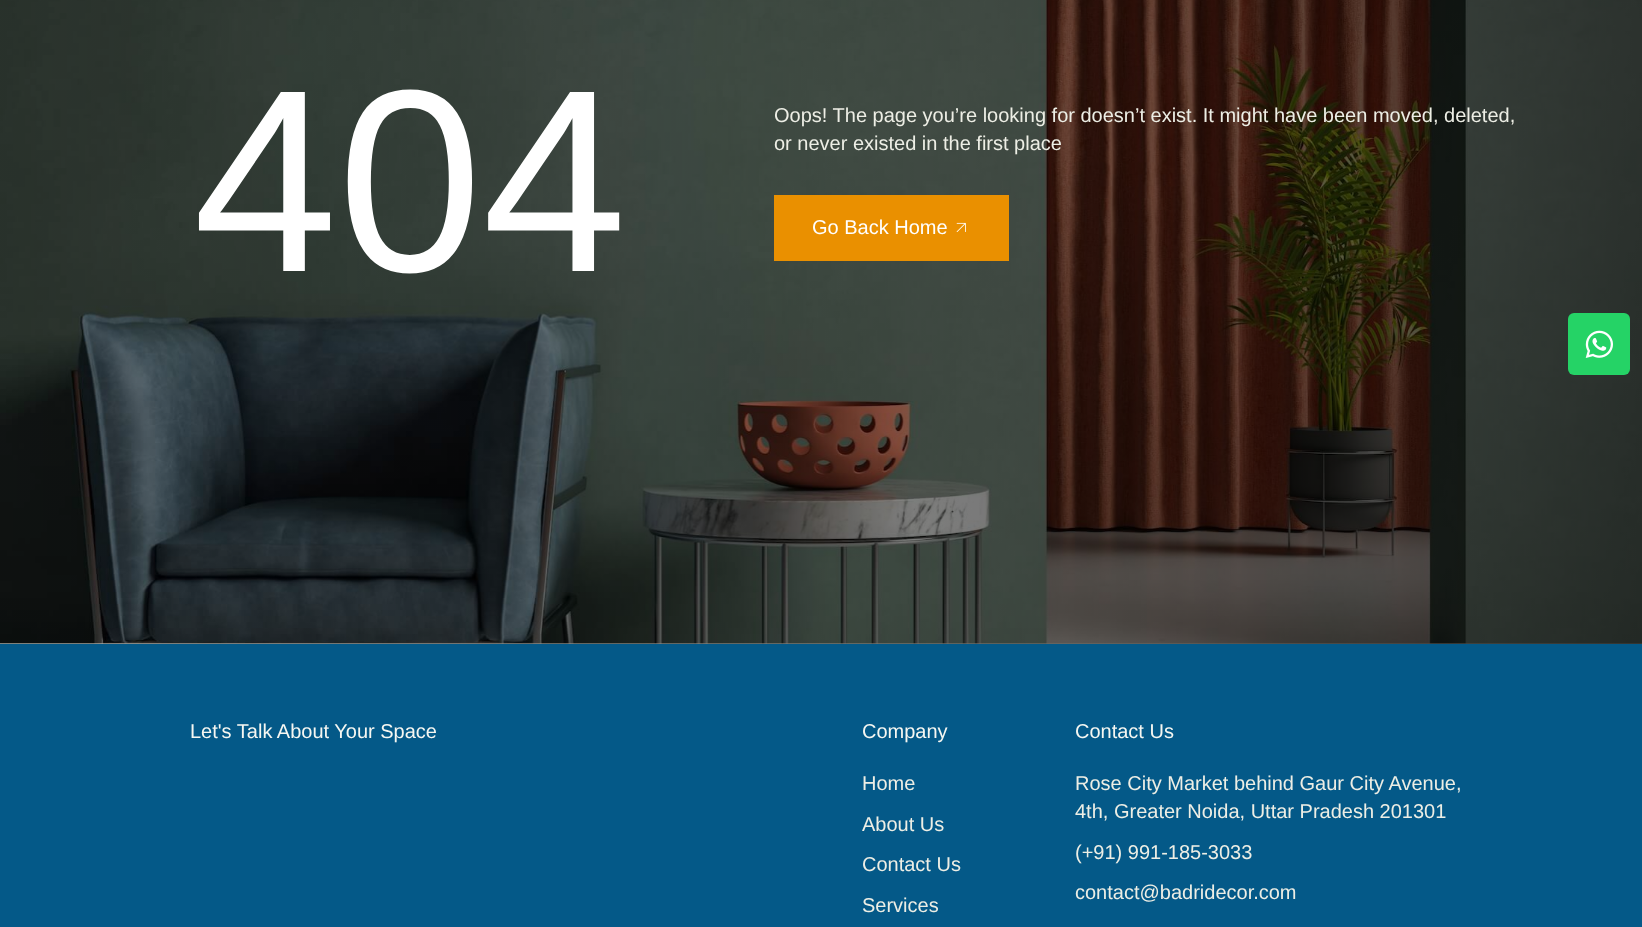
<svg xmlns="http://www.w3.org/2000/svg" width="1642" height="927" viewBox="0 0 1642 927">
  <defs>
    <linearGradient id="g1" gradientUnits="userSpaceOnUse" x1="0" y1="141" x2="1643" y2="141"><stop offset="0" stop-color="#000" stop-opacity="0.19"/><stop offset="1" stop-color="#000" stop-opacity="0.75"/></linearGradient>
  </defs>
  <rect width="100%" height="100%" fill="#edeee5"/>
  <image x="0" y="0" width="1642" height="644" href="img/1.png"/>
  <path d="M0 0h1642v644H0z" fill="url(#g1)"/>
  <path d="M774 195h235v66H774z" fill="#ea9000"/>
  <image x="956" y="222" width="10" height="10" href="img/2.png"/>
  <path d="M0 644h1642v283H0z" fill="#045988"/>
  <rect x="1568" y="313" width="62" height="62" rx="6" fill="#25d366"/>
  <image x="1585" y="330" width="28" height="28" href="img/3.png"/>
  <text x="193" y="271" font-family="Liberation Sans" font-size="260" fill="#fff">404</text>
  <g font-family="Liberation Sans" font-size="20" fill="#edeee5">
    <text x="774" y="122">Oops! The page you’re looking for doesn’t exist. It might have been moved, deleted,</text>
    <text x="774" y="150">or never existed in the first place</text>
  </g>
  <text x="812" y="234" font-family="Liberation Sans" font-size="20" fill="#fff">Go Back Home</text>
  <g font-family="Liberation Sans" font-size="20" fill="#f6f7f2">
    <text x="190" y="738">Let's Talk About Your Space</text>
    <text x="862" y="738">Company</text>
  </g>
  <g font-family="Liberation Sans" font-size="20" fill="#edeee5">
    <text x="862" y="790">Home</text>
    <text x="862" y="831">About Us</text>
    <text x="862" y="871">Contact Us</text>
    <text x="862" y="912">Services</text>
  </g>
  <text x="1075" y="738" font-family="Liberation Sans" font-size="20" fill="#f6f7f2">Contact Us</text>
  <g font-family="Liberation Sans" font-size="20" fill="#edeee5">
    <text x="1075" y="790">Rose City Market behind Gaur City Avenue,</text>
    <text x="1075" y="818">4th, Greater Noida, Uttar Pradesh 201301</text>
    <text x="1075" y="859">(+91) 991-185-3033</text>
    <text x="1075" y="899">contact@badridecor.com</text>
  </g>
</svg>
